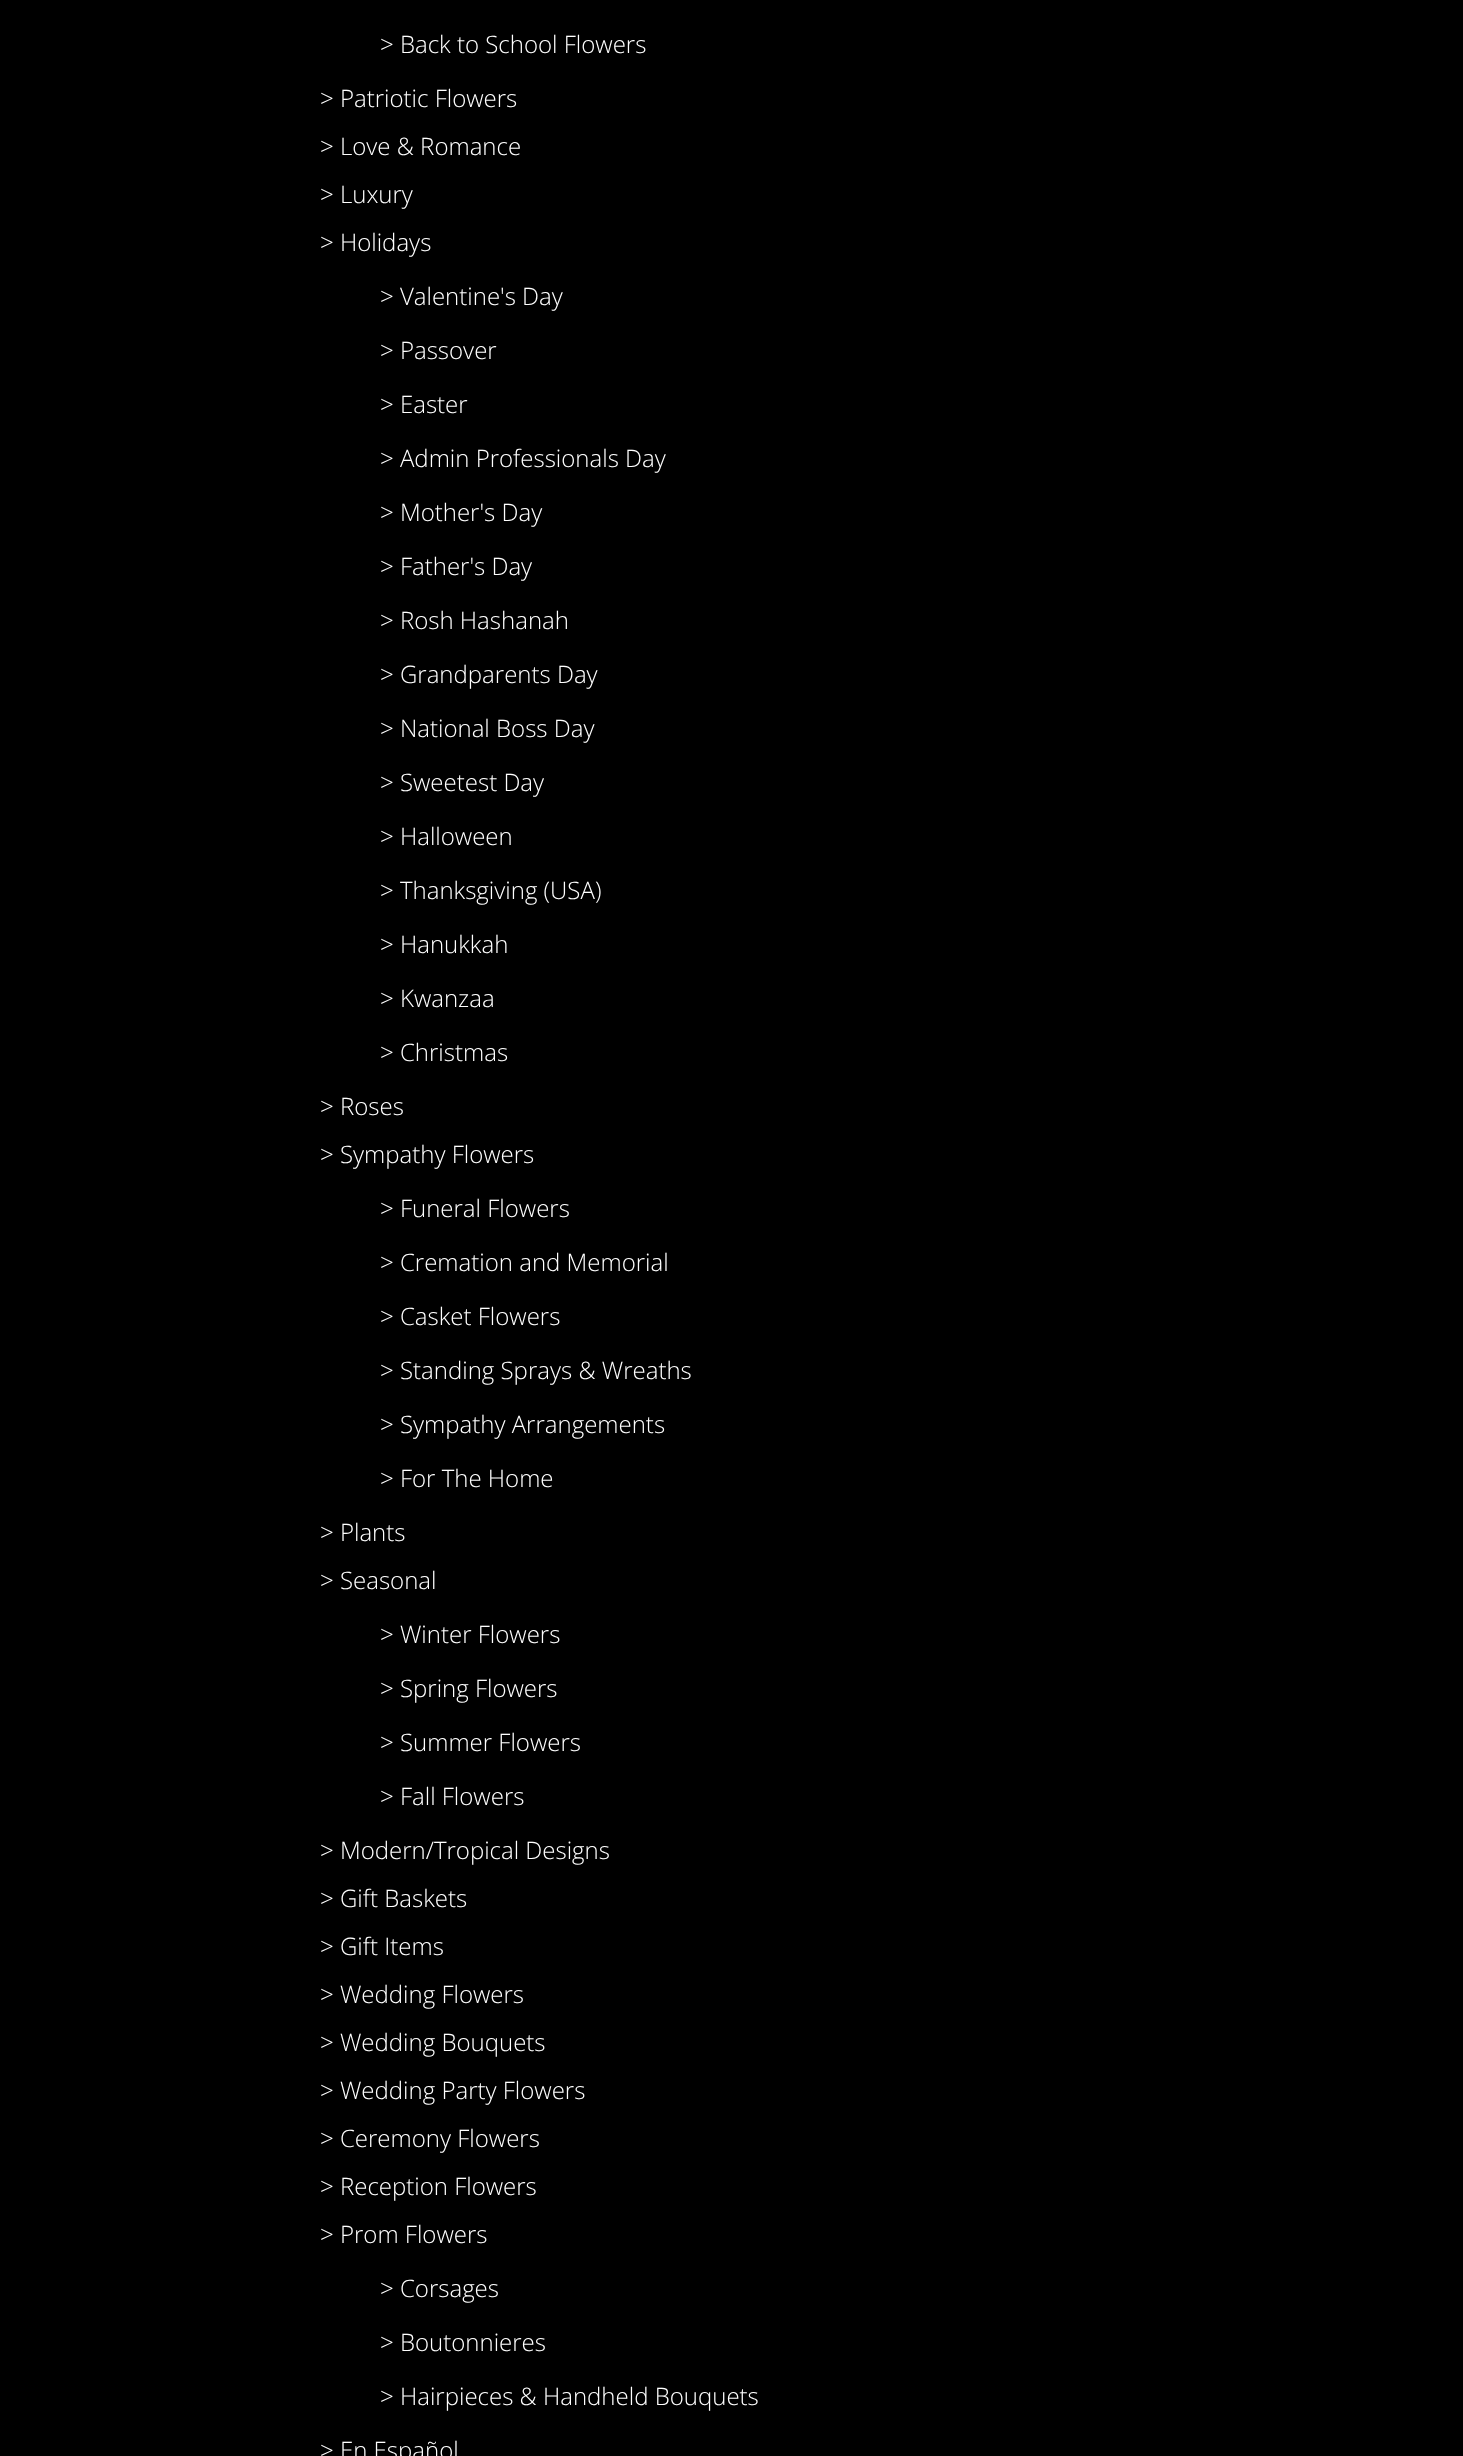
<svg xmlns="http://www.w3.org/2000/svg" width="1463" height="2456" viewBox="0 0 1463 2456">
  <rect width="100%" height="100%" fill="#000"/>
  <g font-family="Open Sans" font-size="24" font-weight="300" fill="#fff">
    <text x="380" y="53">&gt; Back to School Flowers</text>
    <text x="320" y="107">&gt; Patriotic Flowers</text>
    <text x="320" y="155">&gt; Love &amp; Romance</text>
    <text x="320" y="203">&gt; Luxury</text>
    <text x="320" y="251">&gt; Holidays</text>
    <text x="380" y="305">&gt; Valentine's Day</text>
    <text x="380" y="359">&gt; Passover</text>
    <text x="380" y="413">&gt; Easter</text>
    <text x="380" y="467">&gt; Admin Professionals Day</text>
    <text x="380" y="521">&gt; Mother's Day</text>
    <text x="380" y="575">&gt; Father's Day</text>
    <text x="380" y="629">&gt; Rosh Hashanah</text>
    <text x="380" y="683">&gt; Grandparents Day</text>
    <text x="380" y="737">&gt; National Boss Day</text>
    <text x="380" y="791">&gt; Sweetest Day</text>
    <text x="380" y="845">&gt; Halloween</text>
    <text x="380" y="899">&gt; Thanksgiving (USA)</text>
    <text x="380" y="953">&gt; Hanukkah</text>
    <text x="380" y="1007">&gt; Kwanzaa</text>
    <text x="380" y="1061">&gt; Christmas</text>
    <text x="320" y="1115">&gt; Roses</text>
    <text x="320" y="1163">&gt; Sympathy Flowers</text>
    <text x="380" y="1217">&gt; Funeral Flowers</text>
    <text x="380" y="1271">&gt; Cremation and Memorial</text>
    <text x="380" y="1325">&gt; Casket Flowers</text>
    <text x="380" y="1379">&gt; Standing Sprays &amp; Wreaths</text>
    <text x="380" y="1433">&gt; Sympathy Arrangements</text>
    <text x="380" y="1487">&gt; For The Home</text>
    <text x="320" y="1541">&gt; Plants</text>
    <text x="320" y="1589">&gt; Seasonal</text>
    <text x="380" y="1643">&gt; Winter Flowers</text>
    <text x="380" y="1697">&gt; Spring Flowers</text>
    <text x="380" y="1751">&gt; Summer Flowers</text>
    <text x="380" y="1805">&gt; Fall Flowers</text>
    <text x="320" y="1859">&gt; Modern/Tropical Designs</text>
    <text x="320" y="1907">&gt; Gift Baskets</text>
    <text x="320" y="1955">&gt; Gift Items</text>
    <text x="320" y="2003">&gt; Wedding Flowers</text>
    <text x="320" y="2051">&gt; Wedding Bouquets</text>
    <text x="320" y="2099">&gt; Wedding Party Flowers</text>
    <text x="320" y="2147">&gt; Ceremony Flowers</text>
    <text x="320" y="2195">&gt; Reception Flowers</text>
    <text x="320" y="2243">&gt; Prom Flowers</text>
    <text x="380" y="2297">&gt; Corsages</text>
    <text x="380" y="2351">&gt; Boutonnieres</text>
    <text x="380" y="2405">&gt; Hairpieces &amp; Handheld Bouquets</text>
    <text x="320" y="2459">&gt; En Español</text>
  </g>
</svg>
